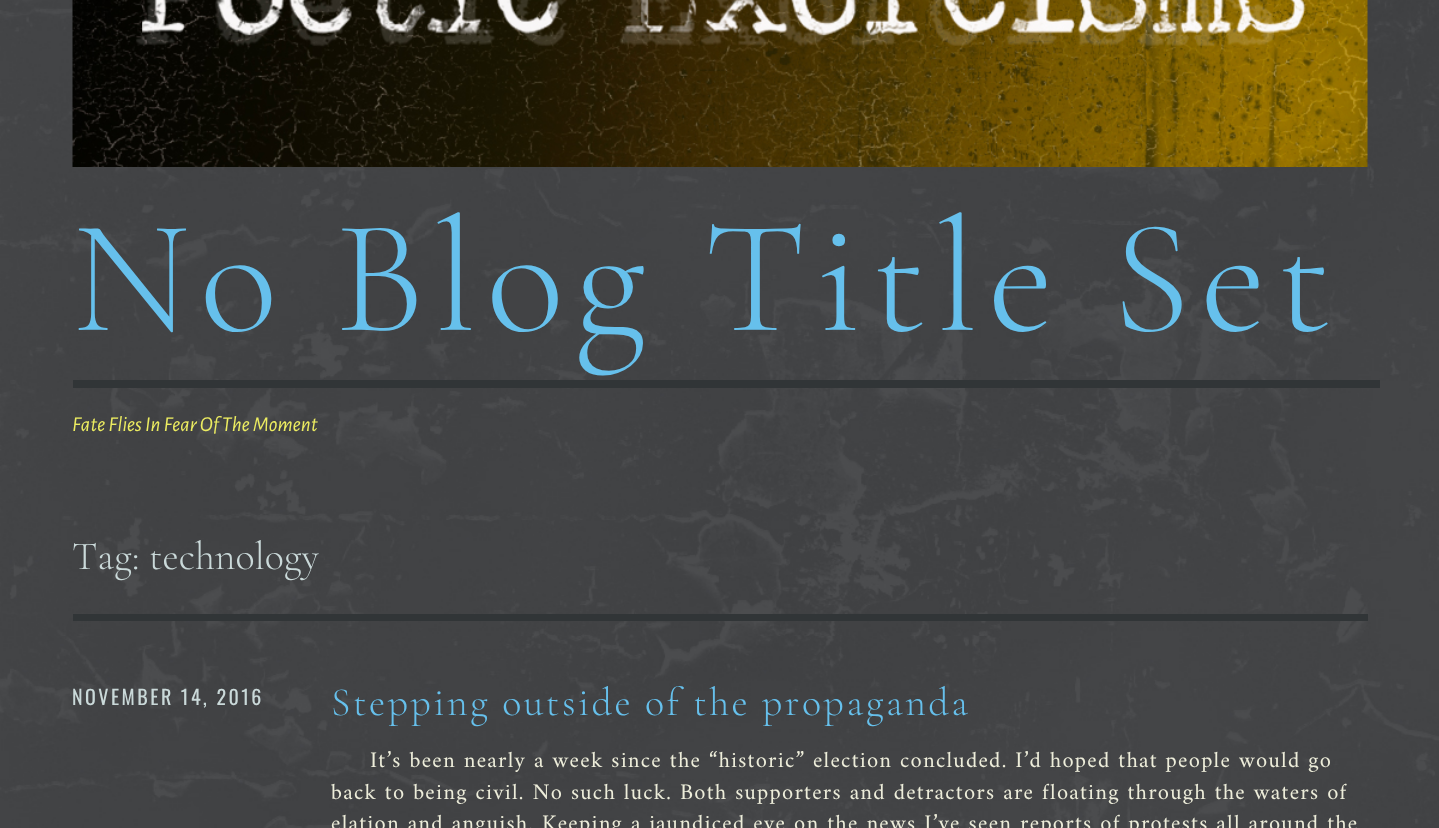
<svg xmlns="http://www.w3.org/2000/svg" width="1439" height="828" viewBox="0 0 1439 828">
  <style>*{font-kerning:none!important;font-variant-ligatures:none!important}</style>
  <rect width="100%" height="100%" fill="#fff"/>
  <image x="0" y="0" width="1439" height="828" href="img/1.png"/>
  <image x="72" y="0" width="1296" height="167" href="img/2.png"/>
  <path d="M73 380h1307v8H73z" fill="#313537"/>
  <path d="M73 614h1295v7H73z" fill="#313537"/>
  <text x="72" y="330" font-family="Cormorant Garamond" font-size="162.5" font-weight="300" letter-spacing="10" fill="#66c0ec">No Blog Title Set</text>
  <text x="72" y="431" font-family="Alegreya Sans" font-size="21.25" font-style="italic" fill="#eded61">Fate Flies In Fear Of The Moment</text>
  <text x="72" y="569" font-family="Cormorant Garamond" font-size="40" font-weight="300" fill="#cad9d9">Tag: technology</text>
  <text x="72" y="705" font-family="Oswald" font-size="20" letter-spacing="2.5" fill="#cad9d9">NOVEMBER 14, 2016</text>
  <text x="331" y="715" font-family="Cormorant Garamond" font-size="40" font-weight="300" letter-spacing="2.5" fill="#66c0ec">Stepping outside of the propaganda</text>
  <g font-family="Amiri" font-size="22.5" letter-spacing="1.25" fill="#ededda">
    <text x="370" y="767">It’s been nearly a week since the “historic” election concluded. I’d hoped that people would go</text>
    <text x="331" y="799">back to being civil. No such luck. Both supporters and detractors are floating through the waters of</text>
    <text x="331" y="830">elation and anguish. Keeping a jaundiced eye on the news I’ve seen reports of protests all around the</text>
  </g>
</svg>
